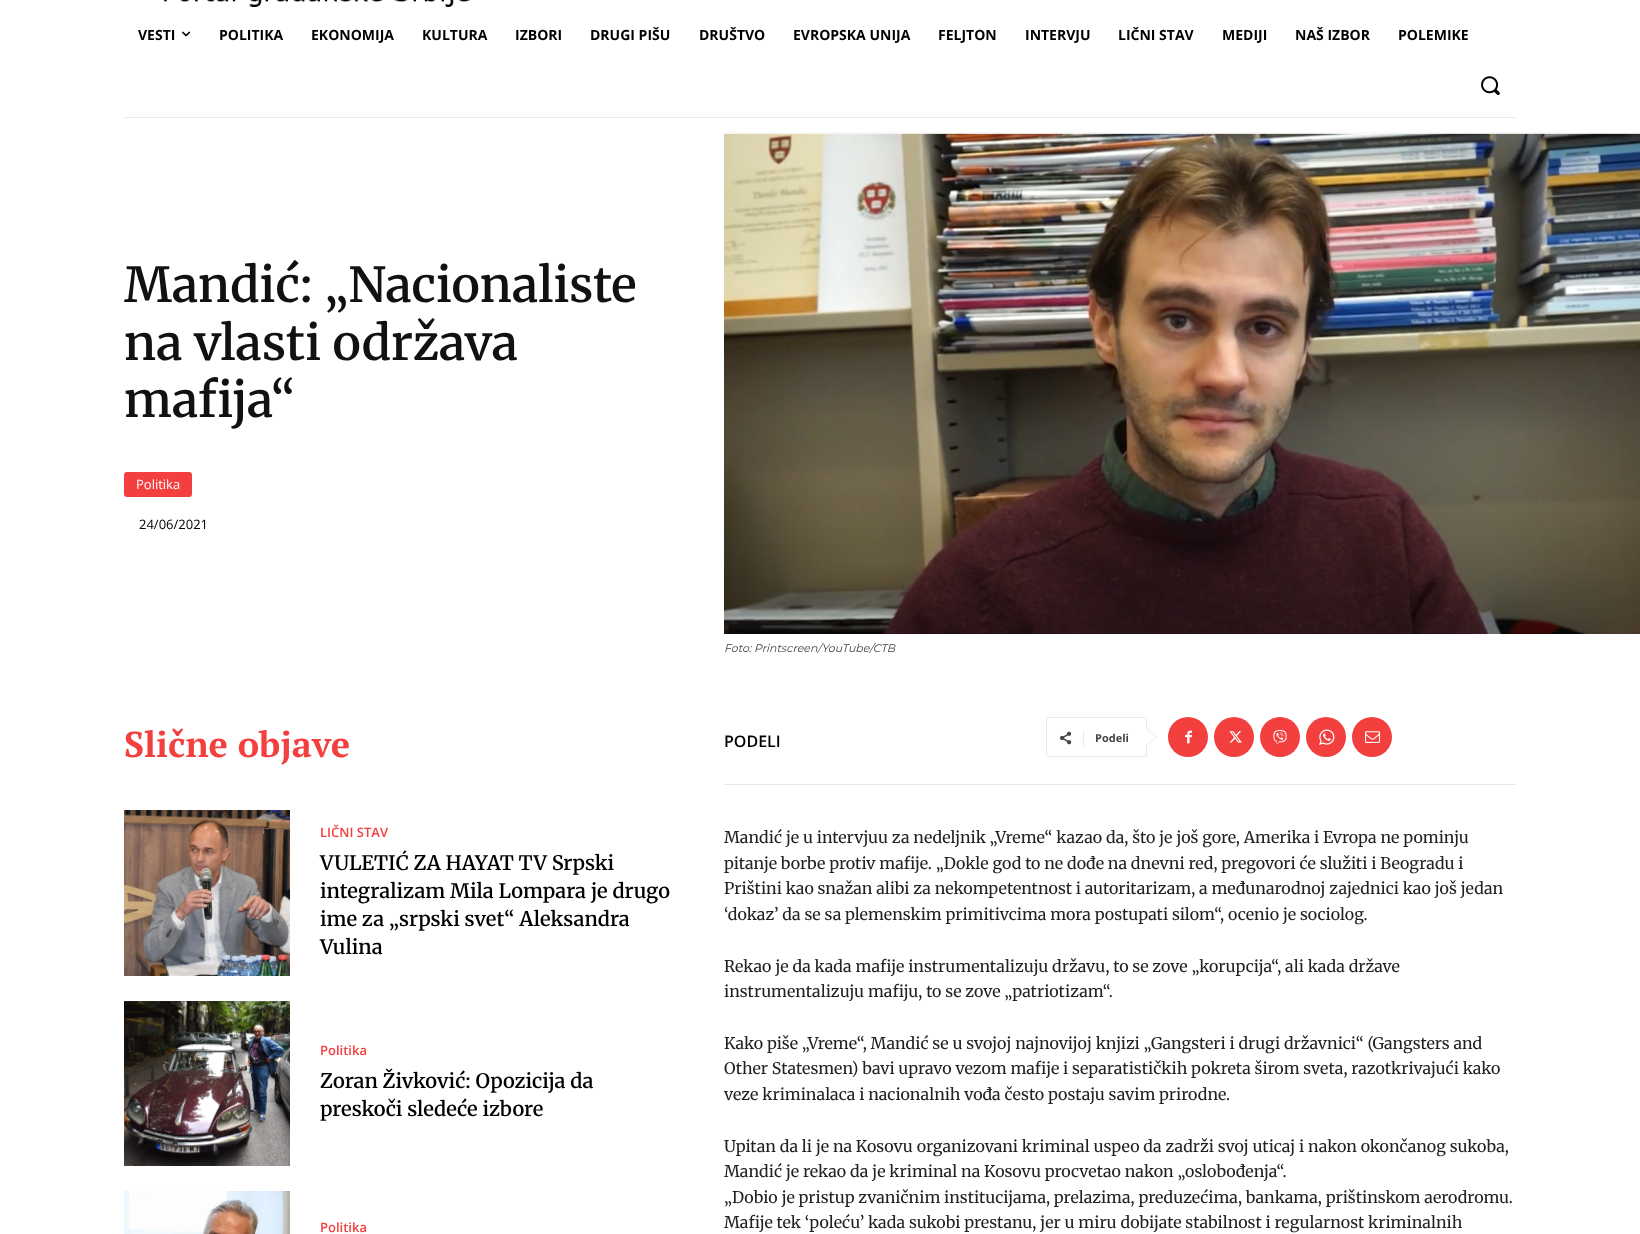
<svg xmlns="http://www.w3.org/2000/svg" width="1640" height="1234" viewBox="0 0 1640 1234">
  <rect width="100%" height="100%" fill="#fff"/>
  <image x="164" y="0" width="306" height="7" href="img/1.png"/>
  <image x="182" y="31" width="9" height="6" href="img/2.png"/>
  <image x="1481" y="76" width="19" height="19" href="img/3.png"/>
  <path d="M124 117h1392v1H124z" fill="#ebebeb"/>
  <rect x="124" y="472" width="68" height="25" rx="3" fill="#f43f3f"/>
  <image x="724" y="132" width="916" height="502" href="img/4.png"/>
  <image x="124" y="810" width="166" height="166" href="img/5.png"/>
  <image x="124" y="1001" width="166" height="165" href="img/6.png"/>
  <image x="124" y="1191" width="166" height="43" href="img/7.png"/>
  <path d="M724 784h792v1H724z" fill="#e6e6e6"/>
  <rect x="1046.5" y="717.5" width="100" height="39" rx="1.5" fill="none" stroke="#e9e9e9"/>
  <path d="M1146 746V728L1157 737Z" fill="#e9e9e9"/>
  <image x="1060" y="731" width="12" height="14" href="img/8.png"/>
  <path d="M1083 730h1v16H1083z" fill="#ebebeb"/>
  <path d="M1146 745V729L1156 737Z" fill="#fff"/>
  <circle cx="1188" cy="737" r="20" fill="#f43f3f"/>
  <image x="1185" y="730" width="7" height="14" href="img/9.png"/>
  <circle cx="1234" cy="737" r="20" fill="#f43f3f"/>
  <image x="1229" y="731" width="13" height="12" href="img/10.png"/>
  <circle cx="1280" cy="737" r="20" fill="#f43f3f"/>
  <image x="1273" y="730" width="14" height="14" href="img/11.png"/>
  <circle cx="1326" cy="737" r="20" fill="#f43f3f"/>
  <image x="1319" y="729" width="16" height="16" href="img/12.png"/>
  <circle cx="1372" cy="737" r="20" fill="#f43f3f"/>
  <image x="1365" y="731" width="15" height="12" href="img/13.png"/>
  <g font-family="Open Sans" font-size="14" font-weight="bold" fill="#000">
    <text x="138" y="40">VESTI</text>
    <text x="219" y="40">POLITIKA</text>
    <text x="311" y="40">EKONOMIJA</text>
    <text x="422" y="40">KULTURA</text>
    <text x="515" y="40">IZBORI</text>
    <text x="590" y="40">DRUGI PIŠU</text>
    <text x="699" y="40">DRUŠTVO</text>
    <text x="793" y="40">EVROPSKA UNIJA</text>
    <text x="938" y="40">FELJTON</text>
    <text x="1025" y="40">INTERVJU</text>
    <text x="1118" y="40">LIČNI STAV</text>
    <text x="1222" y="40">MEDIJI</text>
    <text x="1295" y="40">NAŠ IZBOR</text>
    <text x="1398" y="40">POLEMIKE</text>
  </g>
  <g font-family="Merriweather" font-size="48" font-weight="600" fill="#111">
    <text x="124" y="302">Mandić: „Nacionaliste</text>
    <text x="124" y="360">na vlasti održava</text>
    <text x="124" y="417">mafija“</text>
  </g>
  <text x="136" y="489" font-family="Open Sans" font-size="13" fill="#fff">Politika</text>
  <text x="139" y="529" font-family="Open Sans" font-size="13" fill="#000">24/06/2021</text>
  <text x="724" y="652" font-family="Montserrat" font-size="11" font-style="italic" fill="#444">Foto: Printscreen/YouTube/CTB</text>
  <text x="124" y="757" font-family="PT Serif" font-size="36" font-weight="bold" fill="#f43f3f">Slične objave</text>
  <text x="320" y="837" font-family="Open Sans" font-size="13" font-weight="600" fill="#f43f3f">LIČNI STAV</text>
  <g font-family="Merriweather" font-size="20" font-weight="600" fill="#000">
    <text x="320" y="870">VULETIĆ ZA HAYAT TV Srpski</text>
    <text x="320" y="898">integralizam Mila Lompara je drugo</text>
    <text x="320" y="926">ime za „srpski svet“ Aleksandra</text>
    <text x="320" y="954">Vulina</text>
  </g>
  <text x="320" y="1055" font-family="Open Sans" font-size="13" font-weight="600" fill="#f43f3f">Politika</text>
  <g font-family="Merriweather" font-size="20" font-weight="600" fill="#000">
    <text x="320" y="1088">Zoran Živković: Opozicija da</text>
    <text x="320" y="1116">preskoči sledeće izbore</text>
  </g>
  <text x="320" y="1232" font-family="Open Sans" font-size="13" font-weight="600" fill="#f43f3f">Politika</text>
  <text x="724" y="747" font-family="Open Sans" font-size="16" font-weight="600" fill="#000">PODELI</text>
  <text x="1095" y="742" font-family="Open Sans" font-size="11" font-weight="bold" fill="#444">Podeli</text>
  <g font-family="Merriweather" font-size="16" fill="#222">
    <text x="724" y="843">Mandić je u intervjuu za nedeljnik „Vreme“ kazao da, što je još gore, Amerika i Evropa ne pominju</text>
    <text x="724" y="869">pitanje borbe protiv mafije. „Dokle god to ne dođe na dnevni red, pregovori će služiti i Beogradu i</text>
    <text x="724" y="894">Prištini kao snažan alibi za nekompetentnost i autoritarizam, a međunarodnoj zajednici kao još jedan</text>
    <text x="724" y="920">‘dokaz’ da se sa plemenskim primitivcima mora postupati silom“, ocenio je sociolog.</text>
    <text x="724" y="972">Rekao je da kada mafije instrumentalizuju državu, to se zove „korupcija“, ali kada države</text>
    <text x="724" y="997">instrumentalizuju mafiju, to se zove „patriotizam“.</text>
    <text x="724" y="1049">Kako piše „Vreme“, Mandić se u svojoj najnovijoj knjizi „Gangsteri i drugi državnici“ (Gangsters and</text>
    <text x="724" y="1074">Other Statesmen) bavi upravo vezom mafije i separatističkih pokreta širom sveta, razotkrivajući kako</text>
    <text x="724" y="1100">veze kriminalaca i nacionalnih vođa često postaju savim prirodne.</text>
    <text x="724" y="1152">Upitan da li je na Kosovu organizovani kriminal uspeo da zadrži svoj uticaj i nakon okončanog sukoba,</text>
    <text x="724" y="1177">Mandić je rekao da je kriminal na Kosovu procvetao nakon „oslobođenja“.</text>
    <text x="724" y="1203">„Dobio je pristup zvaničnim institucijama, prelazima, preduzećima, bankama, prištinskom aerodromu.</text>
    <text x="724" y="1228">Mafije tek ‘poleću’ kada sukobi prestanu, jer u miru dobijate stabilnost i regularnost kriminalnih</text>
  </g>
</svg>
